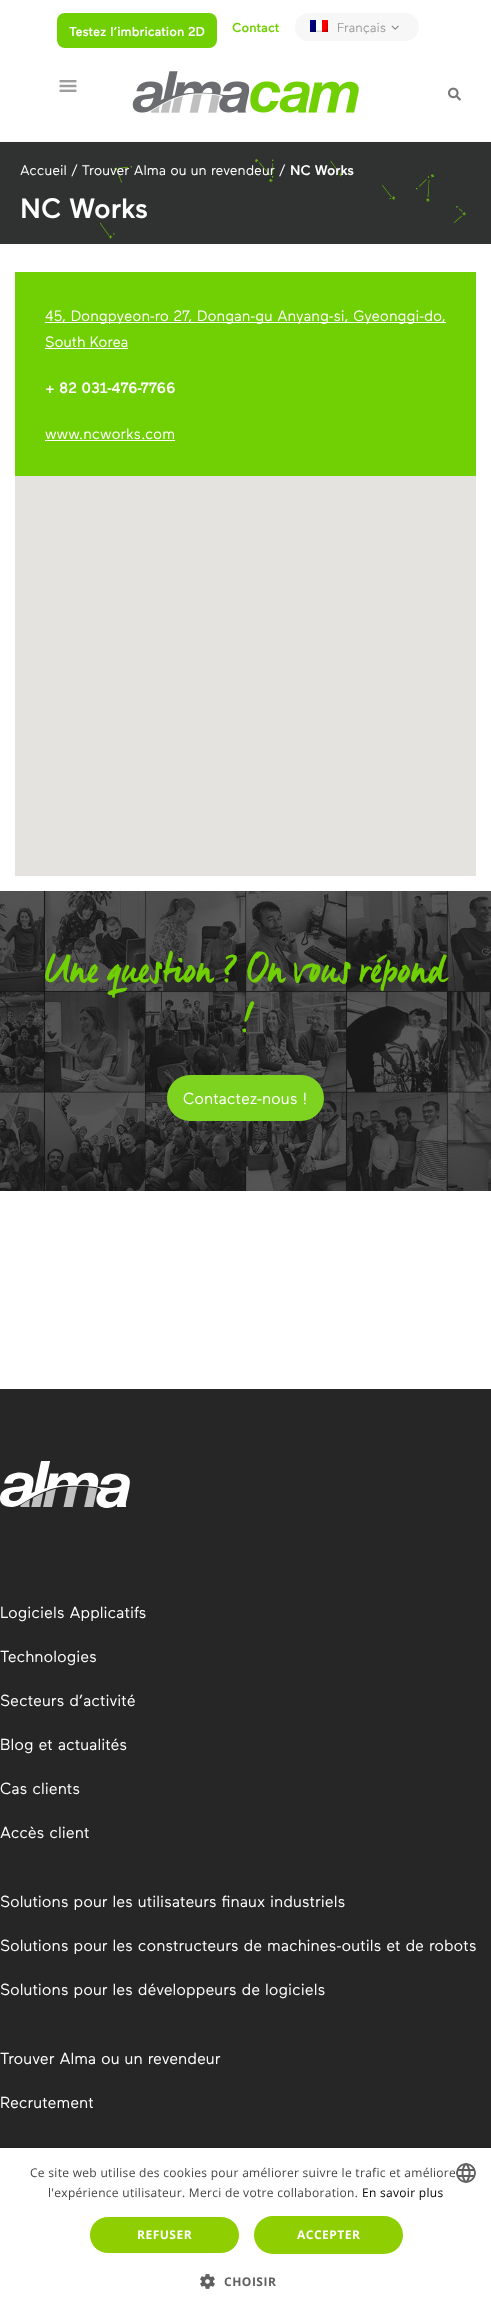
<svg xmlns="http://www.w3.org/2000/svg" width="491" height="2319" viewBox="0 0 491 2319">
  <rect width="100%" height="100%" fill="#fff"/>
  <rect x="57" y="13" width="160" height="35" rx="8" fill="#71d003"/>
  <rect x="295" y="13" width="124" height="28" rx="14" fill="#f7f7f7"/>
  <rect x="295" y="14" width="113" height="27" rx="13.5" fill="#f7f7f7"/>
  <image x="310" y="20" width="18" height="12" href="img/1.png"/>
  <image x="391" y="25" width="8" height="5" href="img/2.png"/>
  <image x="448" y="87" width="13" height="14" href="img/3.png"/>
  <path d="M0 141h491v1H0z" fill="#f9f9f9"/>
  <image x="59" y="80" width="18" height="12" href="img/4.png"/>
  <image x="132" y="71" width="227" height="42" href="img/5.png"/>
  <image x="0" y="142" width="491" height="102" href="img/6.png"/>
  <path d="M15 272h461v204H15z" fill="#71d003"/>
  <path d="M45 322h401v1H45z" fill="#fff"/>
  <path d="M45 348h83v1H45z" fill="#fff"/>
  <path d="M45 440h130v1H45z" fill="#fff"/>
  <path d="M15 476h461v400H15z" fill="#e5e3df"/>
  <image x="0" y="891" width="491" height="300" href="img/7.png"/>
  <rect x="168" y="1076" width="155" height="44" rx="22" fill="#7ed321" stroke="#7ed321" stroke-width="2"/>
  <path d="M0 1389h491v759H0z" fill="#262626"/>
  <image x="0" y="1461" width="130" height="47" href="img/8.png"/>
  <path d="M1 2150h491v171H1z" fill="#00000059" filter="blur(4px)"/>
  <path d="M0 2148h491v171H0z" fill="#fff"/>
  <image x="456" y="2163" width="20" height="20" href="img/9.png"/>
  <rect x="89.5" y="2216.5" width="150" height="37" rx="18.5" fill="#8fce00" stroke="#fff"/>
  <rect x="254" y="2216" width="149" height="38" rx="19" fill="#8fce00"/>
  <image x="200" y="2274" width="15" height="15" href="img/10.png"/>
  <text x="69" y="36" font-family="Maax" font-size="13" font-weight="500" fill="#fff">Testez l’imbrication 2D</text>
  <text x="232" y="32" font-family="Maax" font-size="13" font-weight="500" fill="#71d003">Contact</text>
  <text x="337" y="32" font-family="Maax" font-size="13" fill="#9d9d9d">Français</text>
  <text x="20" y="175" font-family="Maax" font-size="14" fill="#fff">Accueil / Trouver Alma ou un revendeur /</text>
  <text x="290" y="175" font-family="Maax" font-size="14" font-weight="500" fill="#fff">NC Works</text>
  <text x="20" y="218" font-family="Maax" font-size="28" font-weight="500" fill="#fff">NC Works</text>
  <g font-family="Maax" font-size="15" fill="#fff">
    <text x="45" y="321">45, Dongpyeon-ro 27, Dongan-gu Anyang-si, Gyeonggi-do,</text>
    <text x="45" y="347">South Korea</text>
  </g>
  <text x="45" y="393" font-family="Maax" font-size="15" font-weight="500" fill="#fff">+ 82 031-476-7766</text>
  <text x="45" y="439" font-family="Maax" font-size="15" fill="#fff">www.ncworks.com</text>
  <g font-family="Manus" font-size="42" fill="#71d003">
    <text x="45" y="982">Une question ? On vous répond</text>
    <text x="240" y="1032">!</text>
  </g>
  <g font-family="Maax" font-size="16" fill="#fff">
    <text x="183" y="1104">Contactez-nous !</text>
    <text x="0" y="1618">Logiciels Applicatifs</text>
    <text x="0" y="1662">Technologies</text>
    <text x="0" y="1706">Secteurs d’activité</text>
    <text x="0" y="1750">Blog et actualités</text>
    <text x="0" y="1794">Cas clients</text>
    <text x="0" y="1838">Accès client</text>
    <text x="0" y="1907">Solutions pour les utilisateurs finaux industriels</text>
    <text x="0" y="1951">Solutions pour les constructeurs de machines-outils et de robots</text>
    <text x="0" y="1995">Solutions pour les développeurs de logiciels</text>
    <text x="0" y="2064">Trouver Alma ou un revendeur</text>
    <text x="0" y="2108">Recrutement</text>
  </g>
  <g font-family="Open Sans" font-size="12" letter-spacing="0.3" fill="#444">
    <text x="30" y="2177">Ce site web utilise des cookies pour améliorer suivre le trafic et améliore</text>
    <text x="48" y="2197">l'expérience utilisateur. Merci de votre collaboration.</text>
  </g>
  <text x="362" y="2197" font-family="Open Sans" font-size="12" letter-spacing="0.3" fill="#000">En savoir plus</text>
  <g font-family="Open Sans" font-size="12" font-weight="bold" letter-spacing="0.5" fill="#fff">
    <text x="137" y="2239">REFUSER</text>
    <text x="297" y="2239">ACCEPTER</text>
  </g>
  <text x="224" y="2286" font-family="Open Sans" font-size="12" font-weight="bold" letter-spacing="0.5" fill="#606060">CHOISIR</text>
</svg>
